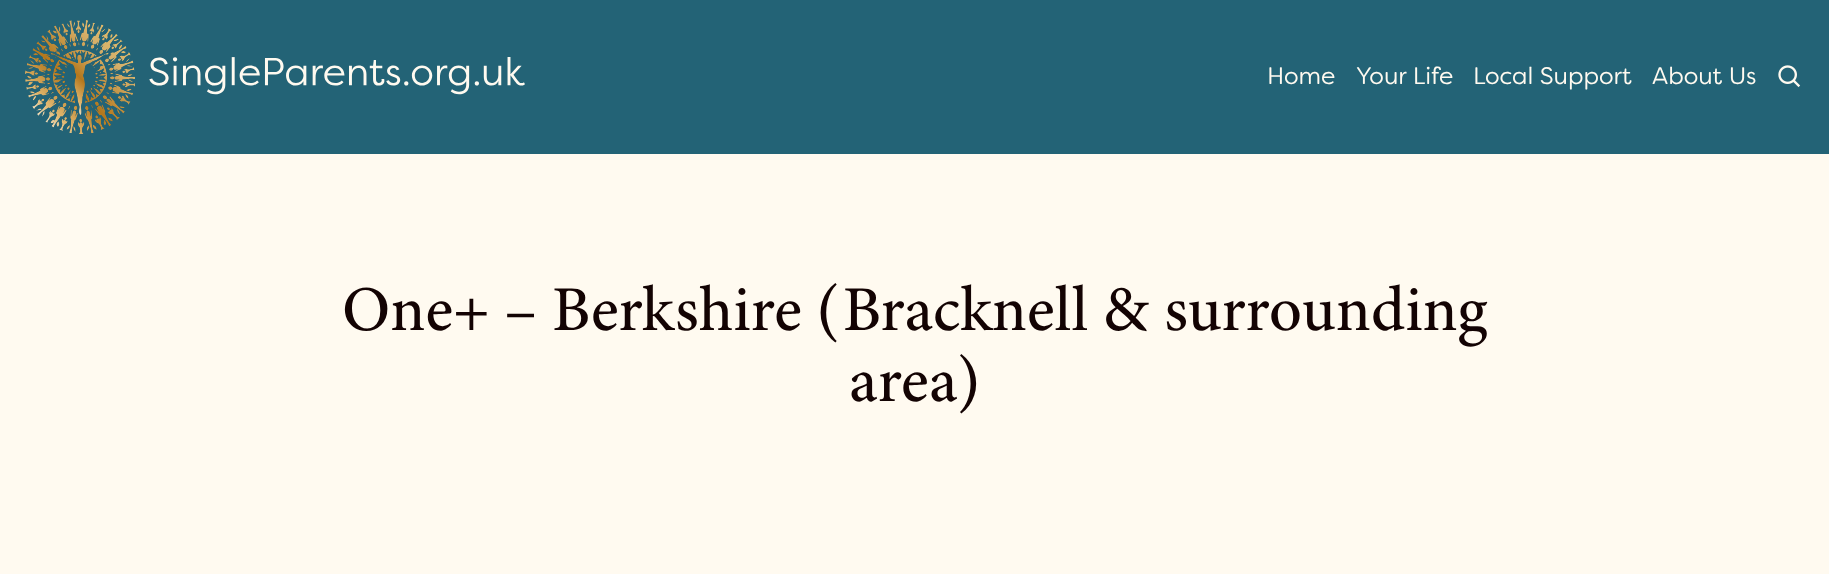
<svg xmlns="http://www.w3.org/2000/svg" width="1829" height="574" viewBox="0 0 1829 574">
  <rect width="100%" height="100%" fill="#236376"/>
  <image x="25" y="20" width="500" height="114" href="img/1.png"/>
  <image x="1778" y="65" width="23" height="23" href="img/2.png"/>
  <path d="M0 154h1829v420H0z" fill="#fffaf0"/>
  <g font-family="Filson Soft" font-size="24" fill="#fffaf0">
    <text x="1267" y="84">Home</text>
    <text x="1356" y="84">Your Life</text>
    <text x="1473" y="84">Local Support</text>
    <text x="1652" y="84">About Us</text>
  </g>
  <g font-family="'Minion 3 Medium'" font-size="64" font-weight="500" fill="#130303">
    <text x="342" y="330">One+ – Berkshire (Bracknell &amp; surrounding</text>
    <text x="849" y="401">area)</text>
  </g>
</svg>
